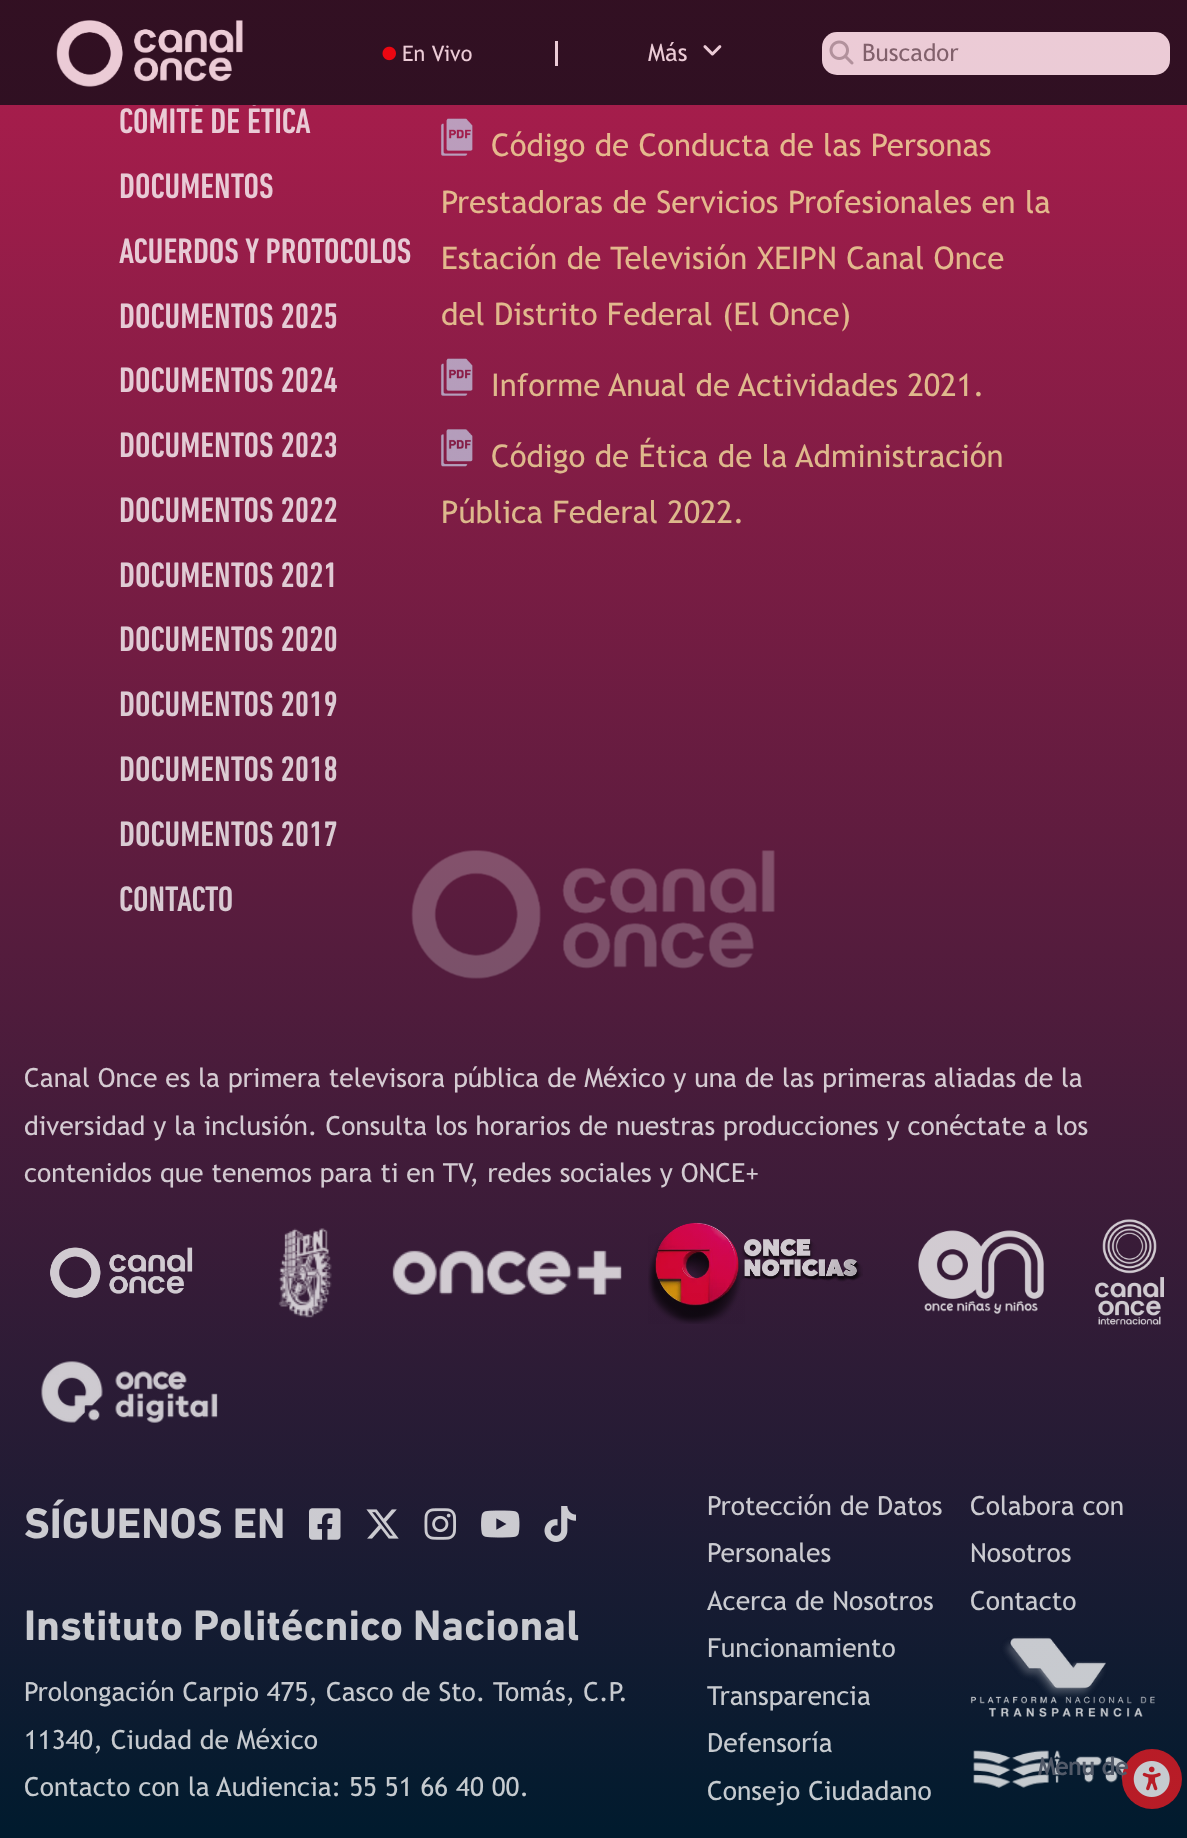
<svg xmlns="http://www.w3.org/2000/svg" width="1187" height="1838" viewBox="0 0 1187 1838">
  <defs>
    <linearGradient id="g1" gradientUnits="userSpaceOnUse" x1="594" y1="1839" x2="594" y2="0"><stop offset="0" stop-color="#001b2e"/><stop offset="1" stop-color="#af1d4d"/></linearGradient>
    <linearGradient id="g2" gradientUnits="userSpaceOnUse" x1="594" y1="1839" x2="594" y2="0"><stop offset="0" stop-color="#001b2e" stop-opacity="0.23"/><stop offset="1" stop-color="#af1d4d" stop-opacity="0.23"/></linearGradient>
  </defs>
  <rect width="100%" height="100%" fill="#fff"/>
  <path d="M0 105h1187v1733H0z" fill="url(#g1)"/>
  <image x="441" y="118" width="32" height="38" href="img/6.png"/>
  <image x="441" y="358" width="32" height="38" href="img/7.png"/>
  <image x="441" y="429" width="32" height="38" href="img/8.png"/>
  <image x="50" y="1247" width="143" height="51" href="img/9.png"/>
  <image x="278" y="1228" width="54" height="90" href="img/10.png"/>
  <image x="392" y="1250" width="230" height="45" href="img/11.png"/>
  <image x="648" y="1222" width="215" height="102" href="img/12.png"/>
  <image x="918" y="1230" width="126" height="84" href="img/13.png"/>
  <image x="1095" y="1219" width="69" height="106" href="img/14.png"/>
  <image x="41" y="1361" width="177" height="62" href="img/15.png"/>
  <image x="309" y="1508" width="32" height="32" href="img/16.png"/>
  <image x="366" y="1509" width="33" height="30" href="img/17.png"/>
  <image x="424" y="1508" width="32" height="32" href="img/18.png"/>
  <image x="481" y="1510" width="39" height="28" href="img/19.png"/>
  <image x="544" y="1506" width="32" height="36" href="img/20.png"/>
  <image x="970" y="1636" width="185" height="82" href="img/21.png"/>
  <image x="973" y="1750" width="88" height="38" href="img/22.png"/>
  <image x="1076" y="1756" width="50" height="27" href="img/23.png"/>
  <circle cx="1152" cy="1779" r="30" fill="#ed1c24"/>
  <image x="1133" y="1761" width="37" height="36" href="img/24.png"/>
  <text x="119" y="133" font-family="DIN Next" font-size="36" font-weight="500" fill="#fff">COMITÉ DE ÉTICA</text>
  <path d="M0 0h1187v105H0z" fill="#0d0c16"/>
  <image x="56" y="20" width="187" height="67" href="img/2.png"/>
  <rect x="822" y="32" width="348" height="43" rx="15" fill="#fff"/>
  <text x="862" y="61" font-family="Trebuchet MS" font-size="24" fill="#757575">Buscador</text>
  <image x="829" y="40" width="25" height="25" href="img/5.png"/>
  <image x="703" y="45" width="19" height="11" href="img/4.png"/>
  <text x="648" y="61" font-family="Trebuchet MS" font-size="24" fill="#fff">Más</text>
  <image x="382" y="46" width="14" height="15" href="img/3.png"/>
  <text x="402" y="61" font-family="Trebuchet MS" font-size="21.5" fill="#fff">En Vivo</text>
  <path d="M555 41h3v25H555z" fill="#fff"/>
  <g font-family="DIN Next" font-size="36" font-weight="500" fill="#fff">
    <text x="119" y="198">DOCUMENTOS</text>
    <text x="119" y="263">ACUERDOS Y PROTOCOLOS</text>
    <text x="119" y="328">DOCUMENTOS 2025</text>
    <text x="119" y="392">DOCUMENTOS 2024</text>
    <text x="119" y="457">DOCUMENTOS 2023</text>
    <text x="119" y="522">DOCUMENTOS 2022</text>
    <text x="119" y="587">DOCUMENTOS 2021</text>
    <text x="119" y="651">DOCUMENTOS 2020</text>
    <text x="119" y="716">DOCUMENTOS 2019</text>
    <text x="119" y="781">DOCUMENTOS 2018</text>
    <text x="119" y="846">DOCUMENTOS 2017</text>
    <text x="119" y="911">CONTACTO</text>
  </g>
  <g font-family="Trebuchet MS" font-size="31.25" fill="#f9e7a1">
    <text x="491" y="156">Código de Conducta de las Personas</text>
    <text x="441" y="213">Prestadoras de Servicios Profesionales en la</text>
    <text x="441" y="269">Estación de Televisión XEIPN Canal Once</text>
    <text x="441" y="325">del Distrito Federal (El Once)</text>
    <text x="491" y="396">Informe Anual de Actividades 2021.</text>
    <text x="491" y="467">Código de Ética de la Administración</text>
    <text x="441" y="523">Pública Federal 2022.</text>
  </g>
  <g font-family="Trebuchet MS" font-size="26.4" fill="#fff">
    <text x="24" y="1087">Canal Once es la primera televisora pública de México y una de las primeras aliadas de la</text>
    <text x="24" y="1135">diversidad y la inclusión. Consulta los horarios de nuestras producciones y conéctate a los</text>
    <text x="24" y="1182">contenidos que tenemos para ti en TV, redes sociales y ONCE+</text>
  </g>
  <g font-family="DIN Next" font-size="43.25" font-weight="bold" fill="#fff">
    <text x="24" y="1538">SÍGUENOS EN</text>
    <text x="24" y="1640">Instituto Politécnico Nacional</text>
  </g>
  <g font-family="Trebuchet MS" font-size="26.4" fill="#fff">
    <text x="24" y="1701">Prolongación Carpio 475, Casco de Sto. Tomás, C.P.</text>
    <text x="24" y="1749">11340, Ciudad de México</text>
    <text x="24" y="1796">Contacto con la Audiencia: 55 51 66 40 00.</text>
    <text x="707" y="1515">Protección de Datos</text>
    <text x="707" y="1562">Personales</text>
    <text x="707" y="1610">Acerca de Nosotros</text>
    <text x="707" y="1657">Funcionamiento</text>
    <text x="707" y="1705">Transparencia</text>
    <text x="707" y="1752">Defensoría</text>
    <text x="707" y="1800">Consejo Ciudadano</text>
    <text x="970" y="1515">Colabora con</text>
    <text x="970" y="1562">Nosotros</text>
    <text x="970" y="1610">Contacto</text>
  </g>
  <text x="1038" y="1775" font-family="Trebuchet MS" font-size="24" font-weight="bold" fill="#696d7a">Menu de</text>
  <path d="M0 0h1187v1809H0z" fill="url(#g2)"/>
  <image x="411" y="850" width="364" height="129" href="img/1.png"/>
</svg>
